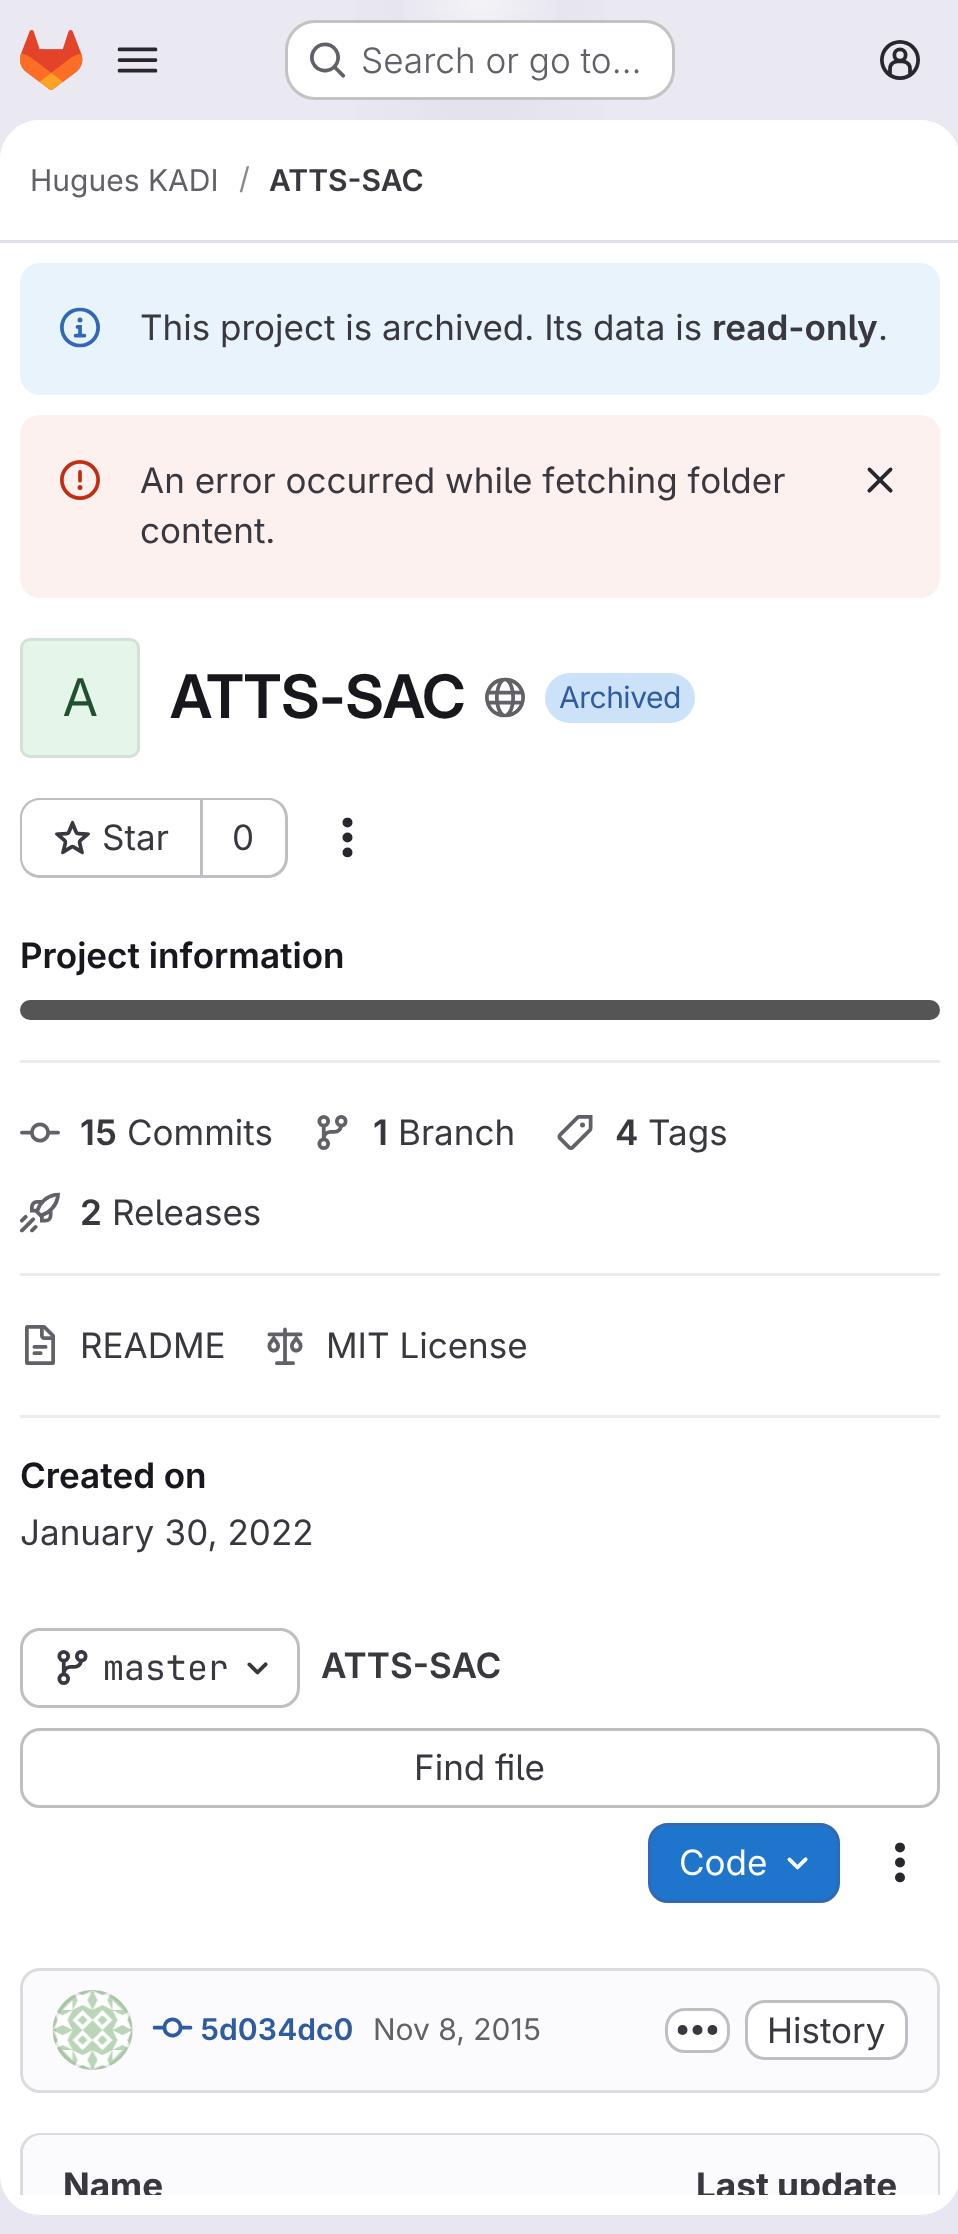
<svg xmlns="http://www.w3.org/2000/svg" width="958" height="2234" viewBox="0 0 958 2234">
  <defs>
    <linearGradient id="g1" gradientUnits="userSpaceOnUse" x1="686" y1="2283" x2="274" y2="-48"><stop offset="0" stop-color="#e8e6f0"/><stop offset="0.7" stop-color="#eae9f2"/></linearGradient>
    <radialGradient id="g2" gradientUnits="userSpaceOnUse" cx="0" cy="0" r="1" gradientTransform="matrix(480 0 0 2235 480 0)"><stop offset="0" stop-color="#e4e2ed"/><stop offset="0.36" stop-color="#e4e2ed" stop-opacity="0"/></radialGradient>
    <radialGradient id="g3" gradientUnits="userSpaceOnUse" cx="0" cy="0" r="1" gradientTransform="matrix(480 0 0 2235 480 0)"><stop offset="0" stop-color="#e4e2ec"/><stop offset="0.26" stop-color="#e4e2ec" stop-opacity="0"/></radialGradient>
    <radialGradient id="g4" gradientUnits="userSpaceOnUse" cx="480" cy="0" r="2286"><stop offset="0" stop-color="#fff" stop-opacity="0.6"/><stop offset="0.04" stop-color="#fff" stop-opacity="0"/></radialGradient>
    <clipPath id="clip1"><path d="M0 243h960v1952H0z"/></clipPath>
  </defs>
  <rect width="100%" height="100%" fill="#fff"/>
  <path d="M0 0h958v2234H0z" fill="url(#g1)"/>
  <path d="M355 0h250v120H355z" fill="url(#g2)"/>
  <path d="M422 13h116v107H422z" fill="url(#g3)"/>
  <path d="M404 0h152v20H404z" fill="url(#g4)"/>
  <image x="20" y="30" width="63" height="60" href="img/1.png"/>
  <image x="117" y="47" width="41" height="26" href="img/2.png"/>
  <rect x="285" y="20" width="390" height="80" rx="30" fill="#fff"/>
  <rect x="286.5" y="21.5" width="387" height="77" rx="28.5" fill="none" stroke="#0505063d" stroke-width="3"/>
  <image x="310" y="42" width="36" height="36" href="img/3.png"/>
  <image x="880" y="40" width="40" height="40" href="img/4.png"/>
  <rect y="120" width="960" height="2095" rx="40" fill="#fff"/>
  <path d="M40 120H920C942 120 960 138 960 160V243H0V160C0 138 18 120 40 120Z" fill="#fff"/>
  <path d="M0 240h958v3H0z" fill="#e1dfec"/>
  <rect x="20" y="263" width="920" height="132" rx="20" fill="#e9f3fc"/>
  <image x="60" y="307" width="40" height="41" href="img/5.png"/>
  <rect x="20" y="415" width="920" height="183" rx="20" fill="#fcf1ef"/>
  <image x="60" y="460" width="40" height="40" href="img/6.png"/>
  <image x="867" y="467" width="26" height="26" href="img/7.png"/>
  <rect x="20" y="638" width="120" height="120" rx="10" fill="#e5f5ea"/>
  <rect x="21.5" y="639.5" width="117" height="117" rx="8.5" fill="none" stroke="#05050614" stroke-width="3"/>
  <image x="485" y="677" width="40" height="41" href="img/8.png"/>
  <rect x="545" y="673" width="150" height="50" rx="25" fill="#cbe2f9"/>
  <path d="M40 798H200V878H40C29 878 20 869 20 858V818C20 806 29 798 40 798ZM40 800H200V875H40C30 875 22 867 22 858V818C22 808 30 800 40 800Z" fill="#bfbfc3" fill-rule="evenodd"/>
  <image x="55" y="820" width="35" height="35" href="img/9.png"/>
  <path d="M202 798H268C279 798 288 806 288 818V858C288 869 279 878 268 878H202ZM202 800H268C277 800 285 808 285 818V858C285 867 277 875 268 875H202Z" fill="#bfbfc3" fill-rule="evenodd"/>
  <path d="M200 798h3v80H200z" fill="#bfbfc3"/>
  <image x="342" y="817" width="11" height="41" href="img/10.png"/>
  <path d="M20 1060h920v3H20z" fill="#ececef"/>
  <rect x="20" y="1000" width="920" height="20" rx="10" fill="#555"/>
  <path d="M20 1273h920v3H20z" fill="#ececef"/>
  <image x="20" y="1122" width="40" height="21" href="img/11.png"/>
  <image x="317" y="1115" width="31" height="35" href="img/12.png"/>
  <image x="557" y="1115" width="36" height="35" href="img/13.png"/>
  <image x="20" y="1192" width="40" height="41" href="img/14.png"/>
  <path d="M20 1415h920v3H20z" fill="#ececef"/>
  <image x="25" y="1325" width="30" height="40" href="img/15.png"/>
  <image x="267" y="1327" width="36" height="38" href="img/16.png"/>
  <rect x="21.5" y="1629.5" width="277" height="77" rx="18.5" fill="none" stroke="#bfbfc3" stroke-width="3"/>
  <image x="57" y="1650" width="31" height="35" href="img/17.png"/>
  <image x="247" y="1662" width="21" height="13" href="img/18.png"/>
  <rect x="21.5" y="1729.5" width="917" height="77" rx="18.5" fill="none" stroke="#bfbfc3" stroke-width="3"/>
  <rect x="649.5" y="1824.5" width="189" height="77" rx="18.5" fill="#1f75cb" stroke="#2f68b4" stroke-width="3"/>
  <image x="787" y="1857" width="21" height="13" href="img/19.png"/>
  <image x="895" y="1842" width="10" height="41" href="img/20.png"/>
  <rect x="21.5" y="1969.5" width="917" height="122" rx="18.5" fill="#fbfafd" stroke="#dcdcde" stroke-width="3"/>
  <image x="52" y="1990" width="81" height="80" href="img/21.png"/>
  <circle cx="93" cy="2030" r="38.5" fill="none" stroke="#05050614" stroke-width="3"/>
  <image x="152" y="2017" width="41" height="21" href="img/22.png"/>
  <rect x="666.5" y="2009.5" width="62" height="42" rx="18.5" fill="#fff" stroke="#bfbfc3" stroke-width="3"/>
  <image x="677" y="2025" width="41" height="10" href="img/23.png"/>
  <rect x="746.5" y="2001.5" width="160" height="57" rx="18.5" fill="#fff" stroke="#bfbfc3" stroke-width="3"/>
  <g clip-path="url(#clip1)">
    <path d="M40 2133C29 2133 20 2142 20 2153V2210L23 2211V2153C23 2144 31 2136 40 2136H920C929 2136 937 2144 937 2153V2211L940 2210V2153C940 2142 931 2133 920 2133Z" fill="#dcdcde"/>
  </g>
  <path d="M41 2135H480V2195H23V2153C23 2143 31 2135 41 2135Z" fill="#fbfafd"/>
  <path d="M480 2135H920C930 2135 938 2143 938 2153V2195H480Z" fill="#fbfafd"/>
  <text x="361" y="73" font-family="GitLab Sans" font-size="35" font-weight="300" fill="#626168">Search or go to…</text>
  <text x="30" y="191" font-family="GitLab Sans" font-size="30" fill="#626168">Hugues KADI</text>
  <text x="239" y="189" font-family="GitLab Sans" font-size="30" fill="#89888d">/</text>
  <text x="269" y="191" font-family="'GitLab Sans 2'" font-size="30" font-weight="600" fill="#3a383f">ATTS-SAC</text>
  <text x="140" y="340" font-family="GitLab Sans" font-size="35" fill="#3a383f">This project is archived. Its data is</text>
  <text x="712" y="340" font-family="'GitLab Sans 2'" font-size="35" font-weight="600" fill="#3a383f">read-only</text>
  <g font-family="GitLab Sans" font-size="35" fill="#3a383f">
    <text x="878" y="340">.</text>
    <text x="140" y="493">An error occurred while fetching folder</text>
    <text x="140" y="543">content.</text>
  </g>
  <text x="63" y="716" font-family="'GitLab Sans 2'" font-size="52" fill="#225131">A</text>
  <text x="170" y="718" font-family="GitLab Sans" font-size="60" font-weight="600" letter-spacing="-0.5" fill="#18171d">ATTS-SAC</text>
  <text x="559" y="708" font-family="GitLab Sans" font-size="30" letter-spacing="-0.5" fill="#2f5ca0">Archived</text>
  <g font-family="GitLab Sans" font-size="35" fill="#3a383f">
    <text x="102" y="850">Star</text>
    <text x="232" y="850">0</text>
  </g>
  <text x="20" y="968" font-family="'GitLab Sans 2'" font-size="35" font-weight="600" fill="#18171d">Project information</text>
  <text x="80" y="1145" font-family="'GitLab Sans 2'" font-size="35" font-weight="600" fill="#3a383f">15</text>
  <text x="127" y="1145" font-family="GitLab Sans" font-size="35" fill="#3a383f">Commits</text>
  <text x="373" y="1145" font-family="'GitLab Sans 2'" font-size="35" font-weight="600" fill="#3a383f">1</text>
  <text x="398" y="1145" font-family="GitLab Sans" font-size="35" fill="#3a383f">Branch</text>
  <text x="615" y="1145" font-family="'GitLab Sans 2'" font-size="35" font-weight="600" fill="#3a383f">4</text>
  <text x="648" y="1145" font-family="GitLab Sans" font-size="35" fill="#3a383f">Tags</text>
  <text x="80" y="1225" font-family="'GitLab Sans 2'" font-size="35" font-weight="600" fill="#3a383f">2</text>
  <g font-family="GitLab Sans" font-size="35" fill="#3a383f">
    <text x="112" y="1225">Releases</text>
    <text x="80" y="1358">README</text>
    <text x="326" y="1358">MIT License</text>
  </g>
  <text x="20" y="1488" font-family="'GitLab Sans 2'" font-size="35" font-weight="600" fill="#18171d">Created on</text>
  <text x="20" y="1545" font-family="GitLab Sans" font-size="35" fill="#3a383f">January 30, 2022</text>
  <text x="103" y="1680" font-family="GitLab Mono" font-size="35" fill="#3a383f">master</text>
  <text x="321" y="1678" font-family="'GitLab Sans 2'" font-size="35" font-weight="600" fill="#3a383f">ATTS-SAC</text>
  <text x="414" y="1780" font-family="GitLab Sans" font-size="35" fill="#3a383f">Find file</text>
  <text x="679" y="1875" font-family="GitLab Sans" font-size="35" fill="#fff">Code</text>
  <text x="200" y="2040" font-family="'GitLab Sans 2'" font-size="30" font-weight="600" fill="#2f5ca0">5d034dc0</text>
  <text x="373" y="2040" font-family="GitLab Sans" font-size="30" fill="#626168">Nov 8, 2015</text>
  <text x="767" y="2043" font-family="GitLab Sans" font-size="35" fill="#3a383f">History</text>
  <g clip-path="url(#clip1)">
    <g font-family="GitLab Sans" font-size="35" font-weight="bold" fill="#3a383f">
      <text x="63" y="2198">Name</text>
      <text x="696" y="2198">Last update</text>
    </g>
  </g>
</svg>
